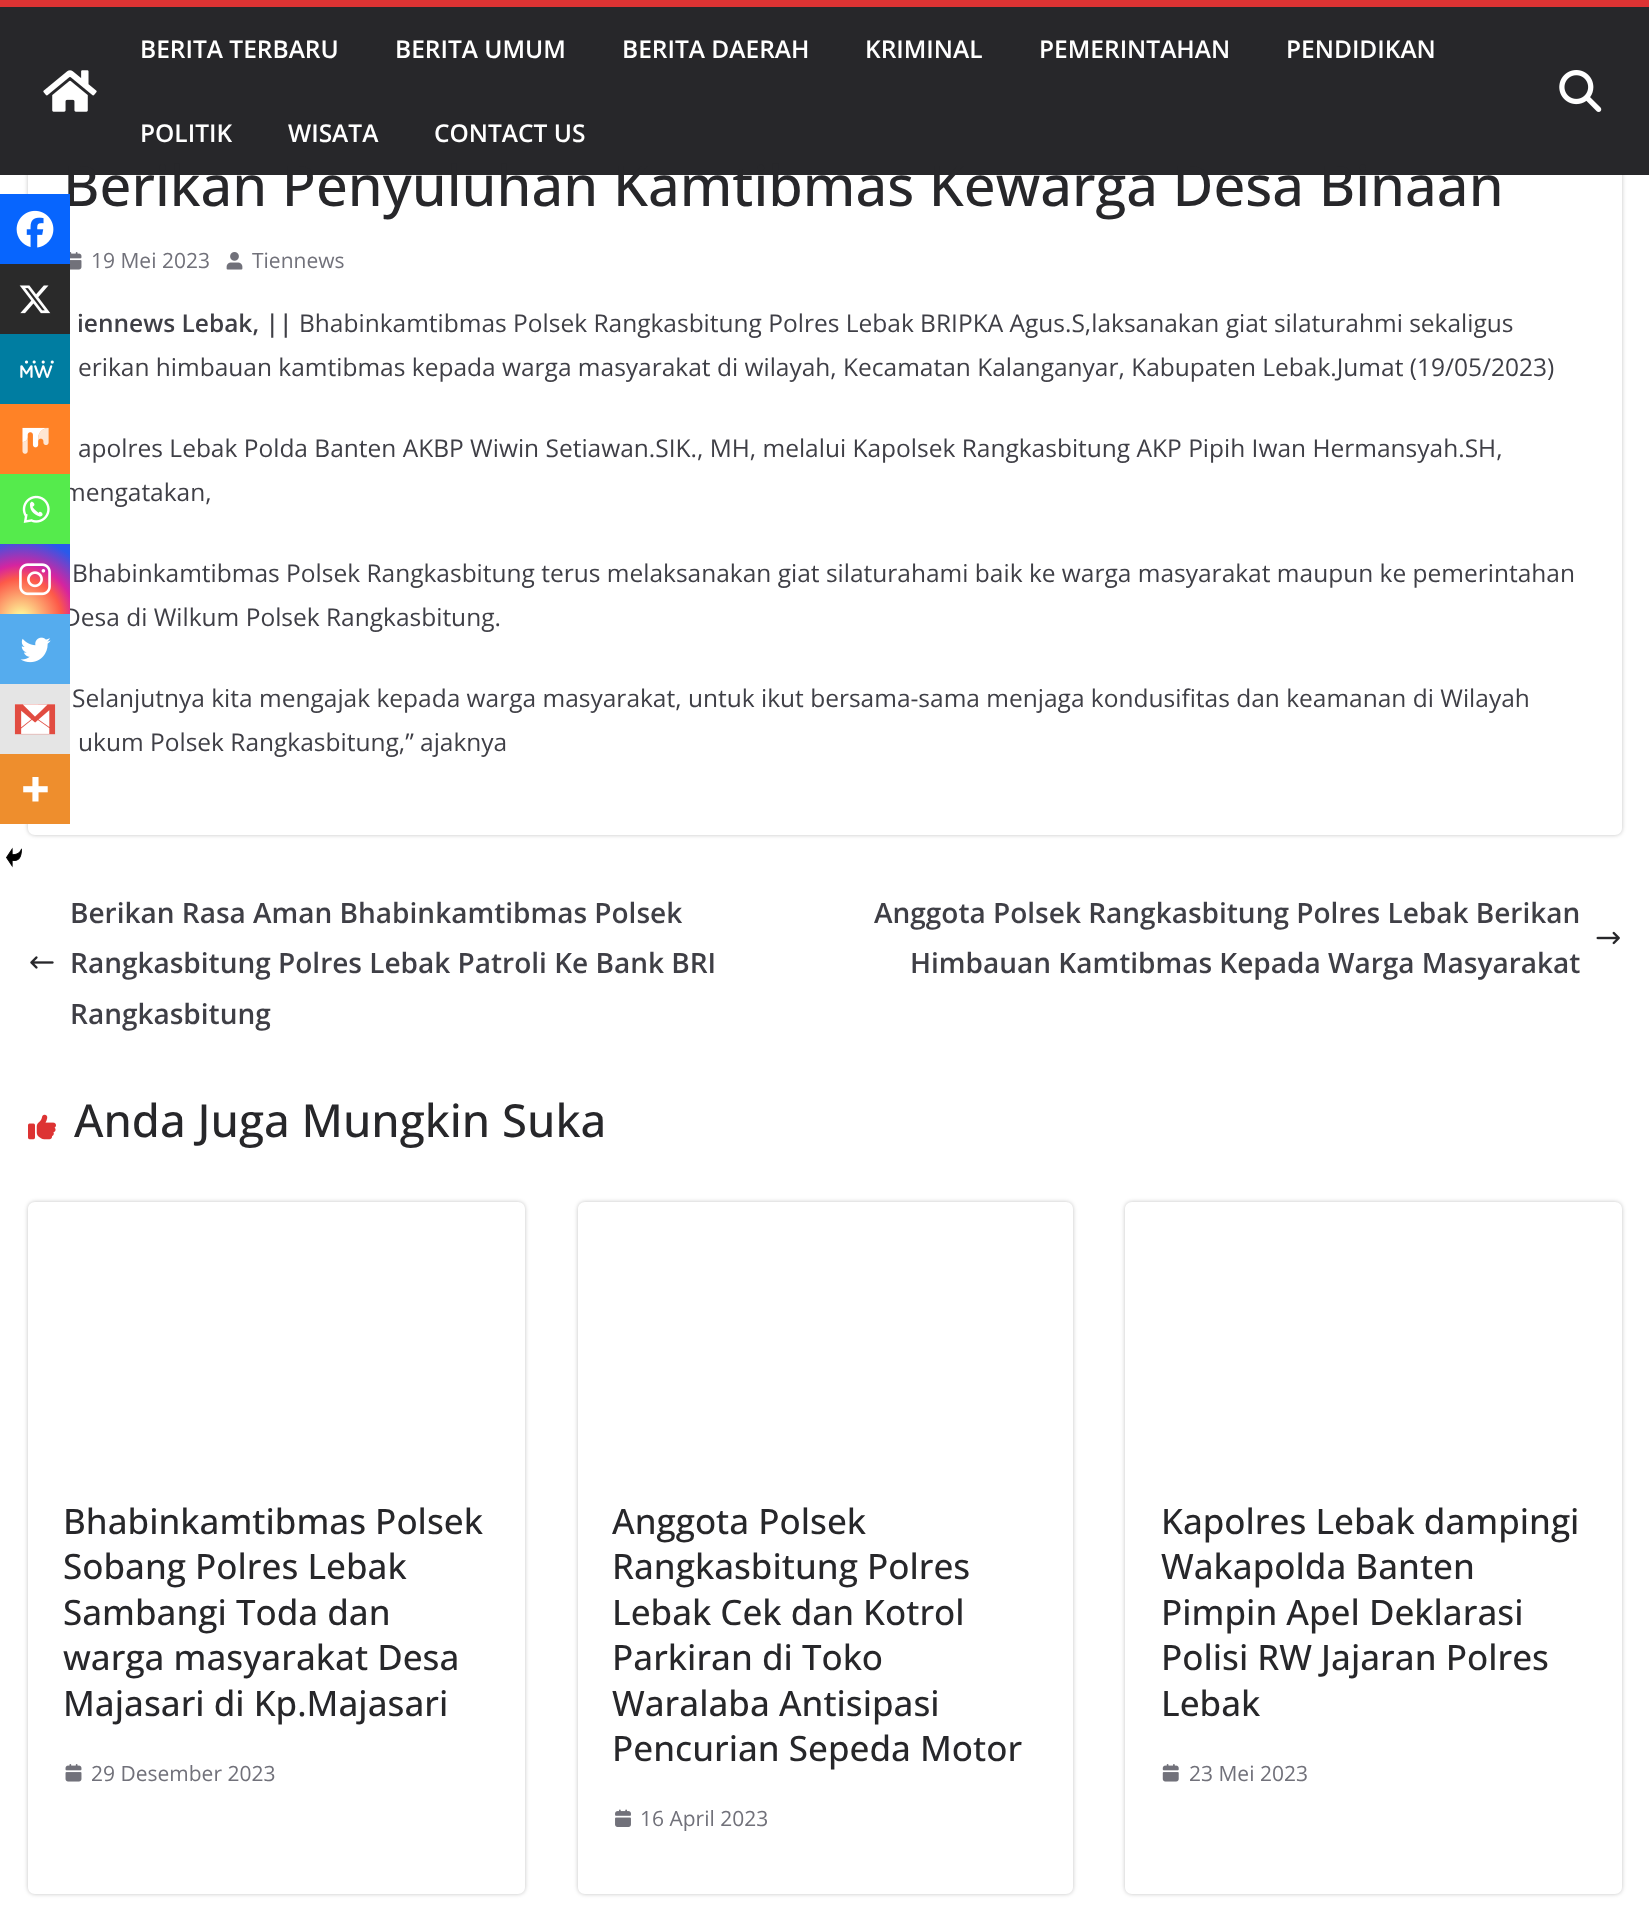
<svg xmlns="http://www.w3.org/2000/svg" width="1649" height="1929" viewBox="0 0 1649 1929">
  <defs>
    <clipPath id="clip1"><path d="M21 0H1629V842H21ZM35-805H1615C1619-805 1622-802 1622-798V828C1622 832 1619 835 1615 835H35C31 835 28 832 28 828V-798C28-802 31-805 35-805Z" clip-rule="evenodd"/></clipPath>
    <clipPath id="clip2"><path d="M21 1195H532V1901H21ZM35 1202H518C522 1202 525 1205 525 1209V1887C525 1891 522 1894 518 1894H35C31 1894 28 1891 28 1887V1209C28 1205 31 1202 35 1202Z" clip-rule="evenodd"/></clipPath>
    <clipPath id="clip3"><path d="M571 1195H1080V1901H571ZM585 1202H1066C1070 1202 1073 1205 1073 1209V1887C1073 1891 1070 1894 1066 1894H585C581 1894 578 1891 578 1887V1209C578 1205 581 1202 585 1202Z" clip-rule="evenodd"/></clipPath>
    <clipPath id="clip4"><path d="M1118 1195H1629V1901H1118ZM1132 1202H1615C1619 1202 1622 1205 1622 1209V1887C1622 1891 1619 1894 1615 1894H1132C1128 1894 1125 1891 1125 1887V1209C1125 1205 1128 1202 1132 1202Z" clip-rule="evenodd"/></clipPath>
    <radialGradient id="g1" gradientUnits="userSpaceOnUse" cx="21" cy="619" r="90"><stop offset="0" stop-color="#fdf497"/><stop offset="0.05" stop-color="#fdf497"/><stop offset="0.45" stop-color="#fd5949"/><stop offset="0.6" stop-color="#d6249f"/><stop offset="0.9" stop-color="#285aeb"/></radialGradient>
  </defs>
  <rect width="100%" height="100%" fill="#fff"/>
  <g clip-path="url(#clip1)">
    <rect x="28" y="-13" width="1594" height="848" rx="7" fill="#0000003d" filter="blur(2px)"/>
  </g>
  <path d="M0 7h1649v168H0z" fill="#27272a"/>
  <path d="M0 0h1649v7H0z" fill="#d33"/>
  <image x="43" y="70" width="54" height="42" href="img/1.png"/>
  <image x="1559" y="70" width="43" height="42" href="img/2.png"/>
  <image x="70" y="252" width="12" height="18" href="img/3.png"/>
  <image x="226" y="252" width="17" height="18" href="img/4.png"/>
  <path d="M0 264h70v70H0z" fill="#2a2a2a"/>
  <image x="19" y="285" width="32" height="29" href="img/6.png"/>
  <path d="M0 334h70v70H0z" fill="#007da1"/>
  <image x="20" y="360" width="34" height="18" href="img/7.png"/>
  <path d="M0 404h70v70H0z" fill="#ff8226"/>
  <image x="22" y="427" width="27" height="27" href="img/8.png"/>
  <path d="M0 684h70v70H0z" fill="#e5e5e5"/>
  <image x="14" y="704" width="42" height="31" href="img/12.png"/>
  <path d="M0 754h70v70H0z" fill="#ee8e2d"/>
  <image x="23" y="777" width="25" height="25" href="img/13.png"/>
  <image x="6" y="847" width="16" height="21" href="img/14.png"/>
  <image x="30" y="956" width="24" height="13" href="img/15.png"/>
  <image x="1596" y="931" width="24" height="14" href="img/16.png"/>
  <image x="28" y="1114" width="28" height="26" href="img/17.png"/>
  <g clip-path="url(#clip2)">
    <rect x="28" y="1202" width="497" height="692" rx="7" fill="#0000003d" filter="blur(2px)"/>
  </g>
  <image x="65" y="1764" width="17" height="18" href="img/18.png"/>
  <g clip-path="url(#clip3)">
    <rect x="578" y="1202" width="495" height="692" rx="7" fill="#0000003d" filter="blur(2px)"/>
  </g>
  <image x="615" y="1809" width="16" height="18" href="img/19.png"/>
  <g clip-path="url(#clip4)">
    <rect x="1125" y="1202" width="497" height="692" rx="7" fill="#0000003d" filter="blur(2px)"/>
  </g>
  <image x="1162" y="1764" width="17" height="18" href="img/20.png"/>
  <g font-family="Open Sans" font-size="24.5" font-weight="600" fill="#fff">
    <text x="140" y="58">BERITA TERBARU</text>
    <text x="395" y="58">BERITA UMUM</text>
    <text x="622" y="58">BERITA DAERAH</text>
    <text x="865" y="58">KRIMINAL</text>
    <text x="1039" y="58">PEMERINTAHAN</text>
    <text x="1286" y="58">PENDIDIKAN</text>
    <text x="140" y="142">POLITIK</text>
    <text x="288" y="142">WISATA</text>
    <text x="434" y="142">CONTACT US</text>
  </g>
  <text x="63" y="206" font-family="Open Sans" font-size="56" font-weight="500" fill="#27272a">Berikan Penyuluhan Kamtibmas Kewarga Desa Binaan</text>
  <g font-family="Open Sans" font-size="21" fill="#71717a">
    <text x="91" y="268">19 Mei 2023</text>
    <text x="252" y="268">Tiennews</text>
  </g>
  <path d="M0 194h70v70H0z" fill="#0765fe"/>
  <image x="16" y="210" width="38" height="38" href="img/5.png"/>
  <text x="77" y="332" font-family="Open Sans" font-size="24.5" font-weight="600" fill="#3f3f46">iennews Lebak, ||</text>
  <g font-family="Open Sans" font-size="24.5" fill="#3f3f46">
    <text x="299" y="332">Bhabinkamtibmas Polsek Rangkasbitung Polres Lebak BRIPKA Agus.S,laksanakan giat silaturahmi sekaligus</text>
    <text x="78" y="376">erikan himbauan kamtibmas kepada warga masyarakat di wilayah, Kecamatan Kalanganyar, Kabupaten Lebak.Jumat (19/05/2023)</text>
    <text x="78" y="457">apolres Lebak Polda Banten AKBP Wiwin Setiawan.SIK., MH, melalui Kapolsek Rangkasbitung AKP Pipih Iwan Hermansyah.SH,</text>
    <text x="63" y="501">mengatakan,</text>
  </g>
  <path d="M0 474h70v70H0z" fill="#55eb4c"/>
  <image x="22" y="495" width="28" height="28" href="img/9.png"/>
  <g font-family="Open Sans" font-size="24.5" fill="#3f3f46">
    <text x="72" y="582">Bhabinkamtibmas Polsek Rangkasbitung terus melaksanakan giat silaturahami baik ke warga masyarakat maupun ke pemerintahan</text>
    <text x="63" y="626">Desa di Wilkum Polsek Rangkasbitung.</text>
  </g>
  <path d="M0 614h70v70H0z" fill="#55acee"/>
  <image x="20" y="637" width="31" height="26" href="img/11.png"/>
  <path d="M0 544h70v70H0z" fill="url(#g1)"/>
  <image x="19" y="563" width="32" height="33" href="img/10.png"/>
  <g font-family="Open Sans" font-size="24.5" fill="#3f3f46">
    <text x="72" y="707">Selanjutnya kita mengajak kepada warga masyarakat, untuk ikut bersama-sama menjaga kondusifitas dan keamanan di Wilayah</text>
    <text x="78" y="751">ukum Polsek Rangkasbitung,” ajaknya</text>
  </g>
  <g font-family="Open Sans" font-size="28" font-weight="600" fill="#3f3f46">
    <text x="70" y="923">Berikan Rasa Aman Bhabinkamtibmas Polsek</text>
    <text x="70" y="973">Rangkasbitung Polres Lebak Patroli Ke Bank BRI</text>
    <text x="70" y="1024">Rangkasbitung</text>
    <text x="874" y="923">Anggota Polsek Rangkasbitung Polres Lebak Berikan</text>
    <text x="910" y="973">Himbauan Kamtibmas Kepada Warga Masyarakat</text>
  </g>
  <text x="74" y="1137" font-family="Open Sans" font-size="45.5" font-weight="500" fill="#27272a">Anda Juga Mungkin Suka</text>
  <g font-family="Open Sans" font-size="35" font-weight="500" fill="#27272a">
    <text x="63" y="1534">Bhabinkamtibmas Polsek</text>
    <text x="63" y="1579">Sobang Polres Lebak</text>
    <text x="63" y="1625">Sambangi Toda dan</text>
    <text x="63" y="1670">warga masyarakat Desa</text>
    <text x="63" y="1716">Majasari di Kp.Majasari</text>
  </g>
  <text x="91" y="1781" font-family="Open Sans" font-size="21" fill="#71717a">29 Desember 2023</text>
  <g font-family="Open Sans" font-size="35" font-weight="500" fill="#27272a">
    <text x="612" y="1534">Anggota Polsek</text>
    <text x="612" y="1579">Rangkasbitung Polres</text>
    <text x="612" y="1625">Lebak Cek dan Kotrol</text>
    <text x="612" y="1670">Parkiran di Toko</text>
    <text x="612" y="1716">Waralaba Antisipasi</text>
    <text x="612" y="1761">Pencurian Sepeda Motor</text>
  </g>
  <text x="640" y="1826" font-family="Open Sans" font-size="21" fill="#71717a">16 April 2023</text>
  <g font-family="Open Sans" font-size="35" font-weight="500" fill="#27272a">
    <text x="1161" y="1534">Kapolres Lebak dampingi</text>
    <text x="1161" y="1579">Wakapolda Banten</text>
    <text x="1161" y="1625">Pimpin Apel Deklarasi</text>
    <text x="1161" y="1670">Polisi RW Jajaran Polres</text>
    <text x="1161" y="1716">Lebak</text>
  </g>
  <text x="1189" y="1781" font-family="Open Sans" font-size="21" fill="#71717a">23 Mei 2023</text>
</svg>
